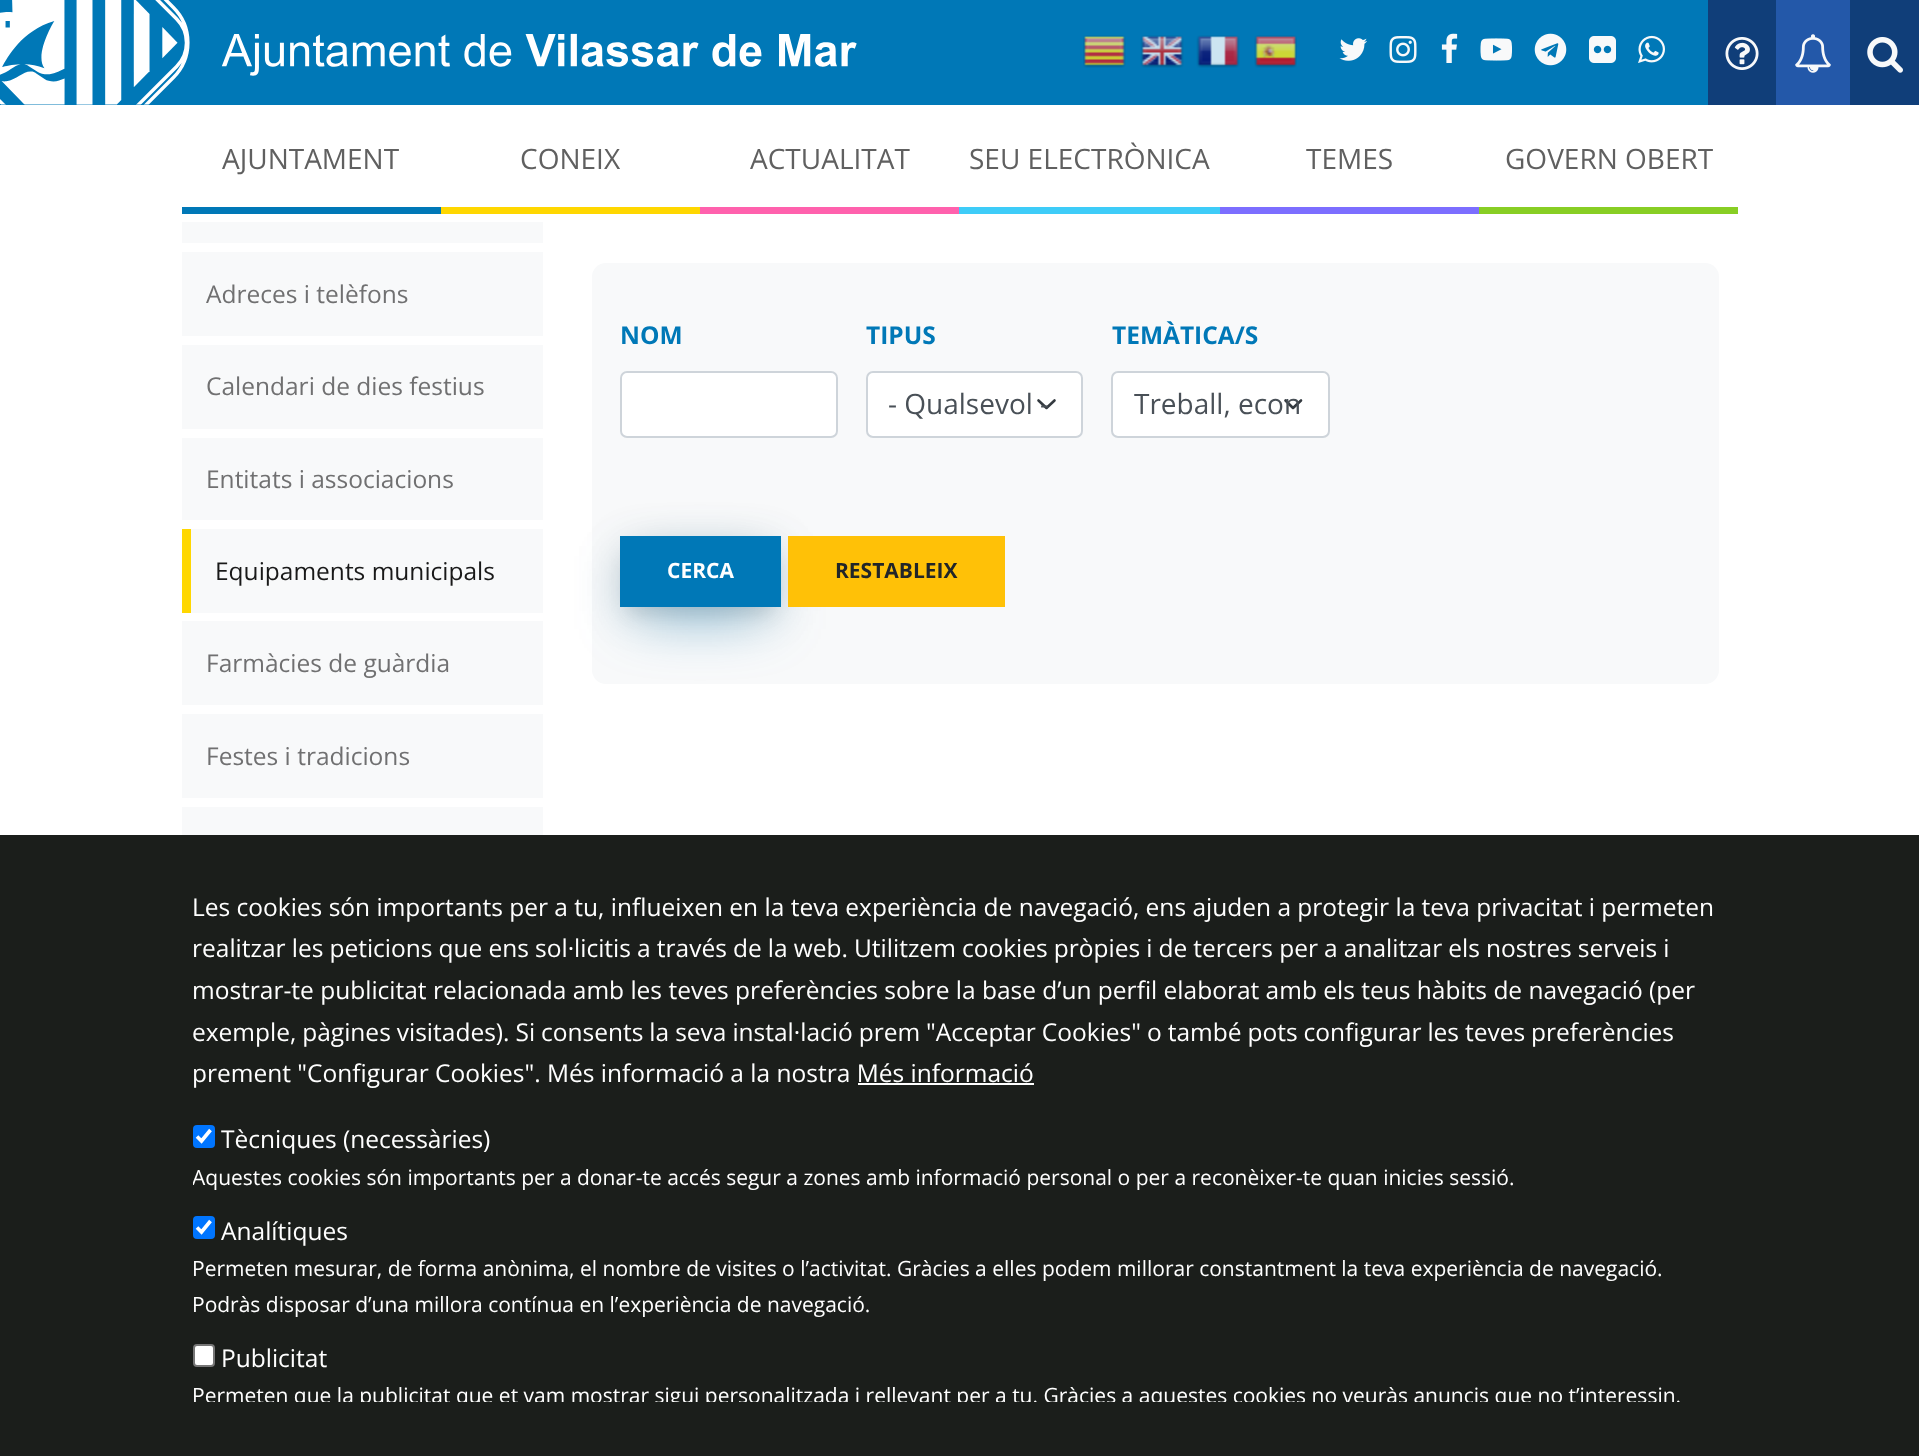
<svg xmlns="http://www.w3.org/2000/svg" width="1919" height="1456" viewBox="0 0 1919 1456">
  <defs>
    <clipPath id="clip1"><path d="M193 877h1534v525H193z"/></clipPath>
  </defs>
  <rect width="100%" height="100%" fill="#fff"/>
  <path d="M0 0h1708v105H0z" fill="#0078b7"/>
  <image x="0" y="0" width="857" height="105" href="img/1.png"/>
  <image x="1083" y="35" width="43" height="33" href="img/2.png"/>
  <image x="1140" y="35" width="44" height="33" href="img/3.png"/>
  <image x="1196" y="35" width="44" height="33" href="img/4.png"/>
  <image x="1254" y="35" width="43" height="33" href="img/5.png"/>
  <image x="1339" y="38" width="28" height="23" href="img/6.png"/>
  <image x="1389" y="36" width="28" height="27" href="img/7.png"/>
  <image x="1441" y="33" width="17" height="30" href="img/8.png"/>
  <image x="1480" y="38" width="32" height="23" href="img/9.png"/>
  <image x="1534" y="33" width="33" height="33" href="img/10.png"/>
  <image x="1589" y="36" width="27" height="27" href="img/11.png"/>
  <image x="1638" y="35" width="27" height="28" href="img/12.png"/>
  <path d="M1708 0h68v105H1708z" fill="#103e79"/>
  <image x="1725" y="37" width="34" height="33" href="img/13.png"/>
  <path d="M1776 0h74v105H1776z" fill="#2358a9"/>
  <image x="1795" y="34" width="36" height="39" href="img/14.png"/>
  <path d="M1850 0h69v105H1850z" fill="#103e79"/>
  <image x="1867" y="37" width="36" height="36" href="img/15.png"/>
  <path d="M182 207h259v7H182z" fill="#0078b7"/>
  <path d="M441 207h259v7H441z" fill="#ffd700"/>
  <path d="M700 207h259v7H700z" fill="#ff61ad"/>
  <path d="M959 207h261v7H959z" fill="#3eccf8"/>
  <path d="M1220 207h259v7H1220z" fill="#7c6eff"/>
  <path d="M1479 207h259v7H1479z" fill="#88ce24"/>
  <path d="M182 222h361v21H182z" fill="#f8f9fa"/>
  <path d="M182 252h361v84H182z" fill="#f8f9fa"/>
  <path d="M182 345h361v84H182z" fill="#f8f9fa"/>
  <path d="M182 438h361v82H182z" fill="#f8f9fa"/>
  <path d="M191 529h352v84H191z" fill="#f8f9fa"/>
  <path d="M182 529h9v84H182z" fill="#ffd700"/>
  <path d="M182 621h361v84H182z" fill="#f8f9fa"/>
  <path d="M182 714h361v84H182z" fill="#f8f9fa"/>
  <path d="M182 807h361v28H182z" fill="#f8f9fa"/>
  <rect x="592" y="263" width="1127" height="421" rx="14" fill="#f8f9fa"/>
  <rect x="621" y="372" width="216" height="65" rx="6" fill="#fff" stroke="#ced4da" stroke-width="2"/>
  <rect x="868" y="373" width="214" height="63" rx="5" fill="#fff"/>
  <path d="M1038.5 400.5L1046.5 408L1054.5 400.5" fill="none" stroke="#343a40" stroke-width="2.6" stroke-linecap="round" stroke-linejoin="round"/>
  <rect x="867" y="372" width="215" height="65" rx="6" fill="none" stroke="#ced4da" stroke-width="2"/>
  <rect x="1113" y="373" width="215" height="63" rx="5" fill="#fff"/>
  <path d="M1285.5 400.5L1293 408L1301 400.5" fill="none" stroke="#343a40" stroke-width="2.6" stroke-linecap="round" stroke-linejoin="round"/>
  <rect x="1112" y="372" width="217" height="65" rx="6" fill="none" stroke="#ced4da" stroke-width="2"/>
  <path d="M623 546h154v65H623z" fill="#00000024" filter="blur(22px)"/>
  <path d="M628 558h144v55H628z" fill="#00000017" filter="blur(9px)"/>
  <path d="M637 574h126v37H637z" fill="#0078b78c" filter="blur(30.5px)"/>
  <path d="M620 536h161v71H620z" fill="#0078b7"/>
  <path d="M788 536h217v71H788z" fill="#ffc107"/>
  <path d="M0 835h1919v621H0z" fill="#1b1e1b"/>
  <path d="M858 1083h176v2H858z" fill="#fff"/>
  <rect x="193" y="1125" width="22" height="23" rx="4" fill="#0075ff"/>
  <path d="M197 1136.5L201.5 1141L210.5 1130" fill="none" stroke="#fff" stroke-width="3.6"/>
  <rect x="193" y="1216" width="22" height="23" rx="4" fill="#0075ff"/>
  <path d="M197 1227.5L201.5 1232L210.5 1221" fill="none" stroke="#fff" stroke-width="3.6"/>
  <rect x="194" y="1345" width="20" height="21" rx="3" fill="#fff" stroke="#767676" stroke-width="2"/>
  <g font-family="Open Sans" font-size="28" fill="#606060">
    <text x="222" y="169">AJUNTAMENT</text>
    <text x="520" y="169">CONEIX</text>
    <text x="750" y="169">ACTUALITAT</text>
    <text x="969" y="169">SEU ELECTRÒNICA</text>
    <text x="1306" y="169">TEMES</text>
    <text x="1505" y="169">GOVERN OBERT</text>
  </g>
  <g font-family="Open Sans" font-size="24.5" fill="#707071">
    <text x="206" y="303">Adreces i telèfons</text>
    <text x="206" y="395">Calendari de dies festius</text>
    <text x="206" y="488">Entitats i associacions</text>
  </g>
  <text x="215" y="580" font-family="Open Sans" font-size="24.5" fill="#191919">Equipaments municipals</text>
  <g font-family="Open Sans" font-size="24.5" fill="#707071">
    <text x="206" y="672">Farmàcies de guàrdia</text>
    <text x="206" y="765">Festes i tradicions</text>
  </g>
  <g font-family="Open Sans" font-size="24.5" font-weight="bold" fill="#0078b7">
    <text x="620" y="344">NOM</text>
    <text x="866" y="344">TIPUS</text>
  </g>
  <text x="888" y="414" font-family="Open Sans" font-size="28" fill="#495057">- Qualsevol -</text>
  <text x="1112" y="344" font-family="Open Sans" font-size="24.5" font-weight="bold" fill="#0078b7">TEMÀTICA/S</text>
  <text x="1134" y="414" font-family="Open Sans" font-size="28" fill="#495057">Treball, econ</text>
  <text x="667" y="578" font-family="Open Sans" font-size="21" font-weight="bold" fill="#fff">CERCA</text>
  <text x="835" y="578" font-family="Open Sans" font-size="21" font-weight="bold" fill="#212529">RESTABLEIX</text>
  <g font-family="Open Sans" font-size="24.5" fill="#fff">
    <text x="192" y="916">Les cookies són importants per a tu, influeixen en la teva experiència de navegació, ens ajuden a protegir la teva privacitat i permeten</text>
    <text x="192" y="957" word-spacing="-0.25">realitzar les peticions que ens sol·licitis a través de la web. Utilitzem cookies pròpies i de tercers per a analitzar els nostres serveis i</text>
    <text x="192" y="999">mostrar-te publicitat relacionada amb les teves preferències sobre la base d’un perfil elaborat amb els teus hàbits de navegació (per</text>
    <text x="192" y="1041" word-spacing="-0.4">exemple, pàgines visitades). Si consents la seva instal·lació prem "Acceptar Cookies" o també pots configurar les teves preferències</text>
    <text x="192" y="1082">prement "Configurar Cookies". Més informació a la nostra Més informació</text>
    <text x="221" y="1148">Tècniques (necessàries)</text>
  </g>
  <g clip-path="url(#clip1)">
    <text x="192" y="1185" font-family="Open Sans" font-size="21" fill="#fff">Aquestes cookies són importants per a donar-te accés segur a zones amb informació personal o per a reconèixer-te quan inicies sessió.</text>
  </g>
  <text x="221" y="1240" font-family="Open Sans" font-size="24.5" fill="#fff">Analítiques</text>
  <g font-family="Open Sans" font-size="21" fill="#fff">
    <text x="192" y="1276">Permeten mesurar, de forma anònima, el nombre de visites o l’activitat. Gràcies a elles podem millorar constantment la teva experiència de navegació.</text>
    <text x="192" y="1312">Podràs disposar d’una millora contínua en l’experiència de navegació.</text>
  </g>
  <text x="221" y="1367" font-family="Open Sans" font-size="24.5" fill="#fff">Publicitat</text>
  <g clip-path="url(#clip1)">
    <text x="192" y="1403" font-family="Open Sans" font-size="21" fill="#fff">Permeten que la publicitat que et vam mostrar sigui personalitzada i rellevant per a tu. Gràcies a aquestes cookies no veuràs anuncis que no t’interessin.</text>
  </g>
</svg>
